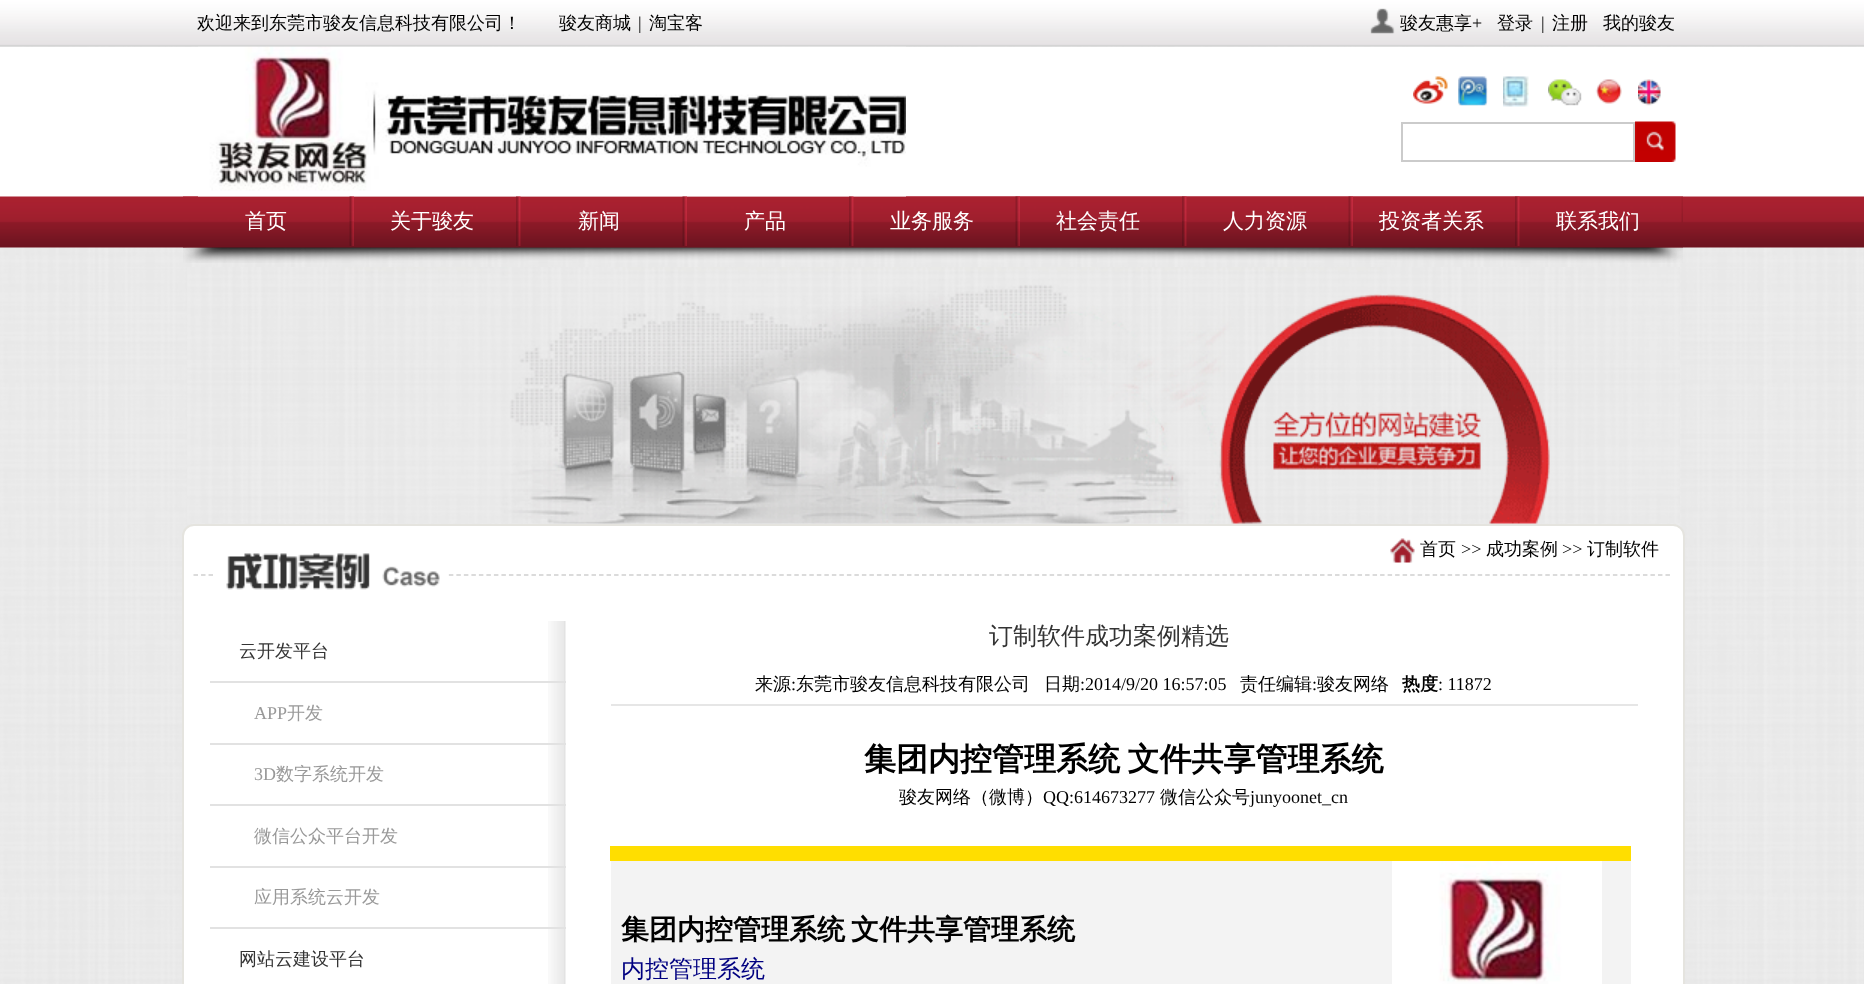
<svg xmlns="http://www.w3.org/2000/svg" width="1864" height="984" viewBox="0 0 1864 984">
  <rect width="100%" height="100%" fill="#fff"/>
  <image x="0" y="46" width="1864" height="938" href="img/1.png"/>
  <path d="M0 47h1864v150H0z" fill="#fff"/>
  <image x="0" y="196" width="1864" height="52" href="img/12.png"/>
  <image x="183" y="196" width="1500" height="67" href="img/13.png"/>
  <image x="198" y="46" width="708" height="151" href="img/4.png"/>
  <image x="0" y="0" width="1864" height="47" href="img/2.png"/>
  <image x="1370" y="8" width="25" height="26" href="img/3.png"/>
  <image x="1413" y="76" width="35" height="28" href="img/5.png"/>
  <image x="1458" y="76" width="30" height="30" href="img/6.png"/>
  <image x="1503" y="76" width="26" height="31" href="img/7.png"/>
  <image x="1548" y="79" width="34" height="27" href="img/8.png"/>
  <image x="1595" y="79" width="27" height="25" href="img/9.png"/>
  <image x="1638" y="79" width="23" height="27" href="img/10.png"/>
  <path d="M1402 123h232v38H1402z" fill="none" stroke="#cbcbcb" stroke-width="2"/>
  <image x="1635" y="121" width="41" height="41" href="img/11.png"/>
  <image x="349" y="196" width="5" height="50" href="img/14.png"/>
  <image x="516" y="196" width="5" height="50" href="img/15.png"/>
  <image x="682" y="196" width="5" height="50" href="img/16.png"/>
  <image x="849" y="196" width="5" height="50" href="img/15.png"/>
  <image x="1015" y="196" width="5" height="50" href="img/17.png"/>
  <image x="1182" y="196" width="5" height="50" href="img/18.png"/>
  <image x="1348" y="196" width="5" height="50" href="img/19.png"/>
  <image x="1515" y="196" width="5" height="50" href="img/20.png"/>
  <image x="187" y="267" width="1493" height="257" href="img/21.png"/>
  <path d="M194 525H1673C1679 525 1684 530 1684 536V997H183V536C183 530 188 525 194 525Z" fill="#fff" stroke="#e5e4df" stroke-width="2"/>
  <path d="M193.5 575H1671" fill="none" stroke="#d0d0d0" stroke-width="1.5" stroke-dasharray="4.5 3.01"/>
  <image x="1390" y="538" width="25" height="25" href="img/22.png"/>
  <image x="216" y="553" width="230" height="37" href="img/23.png"/>
  <image x="548" y="621" width="18" height="363" href="img/24.png"/>
  <path d="M210 681h356v2H210z" fill="#e2e2e2"/>
  <path d="M210 743h356v2H210z" fill="#e2e2e2"/>
  <path d="M210 804h356v2H210z" fill="#e2e2e2"/>
  <path d="M210 866h356v2H210z" fill="#e2e2e2"/>
  <path d="M210 927h356v2H210z" fill="#e2e2e2"/>
  <path d="M611 704h1027v2H611z" fill="#e6e6e6"/>
  <path d="M610 846h1021v15H610z" fill="#ffde00"/>
  <path d="M611 861h1020v123H611z" fill="#f3f3f3"/>
  <image x="1392" y="861" width="210" height="123" href="img/25.png"/>
  <g font-family="WenQuanYi Zen Hei" font-size="18" font-weight="500" fill="#000">
    <text x="197" y="29">欢迎来到东莞市骏友信息科技有限公司！</text>
    <text x="559" y="29">骏友商城</text>
  </g>
  <text x="638" y="29" font-family="Liberation Serif" font-size="18" fill="#000">|</text>
  <g font-family="WenQuanYi Zen Hei" font-size="18" font-weight="500" fill="#000">
    <text x="649" y="29">淘宝客</text>
    <text x="1400" y="29">骏友惠享</text>
  </g>
  <text x="1472" y="29" font-family="Liberation Serif" font-size="18" fill="#000">+</text>
  <text x="1497" y="29" font-family="WenQuanYi Zen Hei" font-size="18" font-weight="500" fill="#000">登录</text>
  <text x="1541" y="29" font-family="Liberation Serif" font-size="18" fill="#000">|</text>
  <g font-family="WenQuanYi Zen Hei" font-size="18" font-weight="500" fill="#000">
    <text x="1552" y="29">注册</text>
    <text x="1603" y="29">我的骏友</text>
  </g>
  <g font-family="WenQuanYi Zen Hei" font-size="21" font-weight="500" fill="#fff">
    <text x="245" y="228">首页</text>
    <text x="390" y="228">关于骏友</text>
    <text x="578" y="228">新闻</text>
    <text x="744" y="228">产品</text>
    <text x="890" y="228">业务服务</text>
    <text x="1056" y="228">社会责任</text>
    <text x="1223" y="228">人力资源</text>
    <text x="1379" y="228">投资者关系</text>
    <text x="1556" y="228">联系我们</text>
  </g>
  <text x="1420" y="555" font-family="WenQuanYi Zen Hei" font-size="18" font-weight="500" fill="#000">首页</text>
  <text x="1461" y="555" font-family="Liberation Serif" font-size="18" fill="#000">&gt;&gt;</text>
  <text x="1486" y="555" font-family="WenQuanYi Zen Hei" font-size="18" font-weight="500" fill="#000">成功案例</text>
  <text x="1562" y="555" font-family="Liberation Serif" font-size="18" fill="#000">&gt;&gt;</text>
  <text x="1587" y="555" font-family="WenQuanYi Zen Hei" font-size="18" font-weight="500" fill="#000">订制软件</text>
  <text x="239" y="657" font-family="WenQuanYi Zen Hei" font-size="18" font-weight="500" fill="#333">云开发平台</text>
  <text x="254" y="719" font-family="Liberation Serif" font-size="18" fill="#999">APP</text>
  <text x="287" y="719" font-family="WenQuanYi Zen Hei" font-size="18" font-weight="500" fill="#999">开发</text>
  <text x="254" y="780" font-family="Liberation Serif" font-size="18" fill="#999">3D</text>
  <g font-family="WenQuanYi Zen Hei" font-size="18" font-weight="500" fill="#999">
    <text x="276" y="780">数字系统开发</text>
    <text x="254" y="842">微信公众平台开发</text>
    <text x="254" y="903">应用系统云开发</text>
  </g>
  <text x="239" y="965" font-family="WenQuanYi Zen Hei" font-size="18" font-weight="500" fill="#333">网站云建设平台</text>
  <text x="989" y="644" font-family="WenQuanYi Zen Hei" font-size="24" font-weight="500" fill="#333">订制软件成功案例精选</text>
  <text x="755" y="690" font-family="WenQuanYi Zen Hei" font-size="18" font-weight="500" fill="#000">来源</text>
  <text x="791" y="690" font-family="Liberation Serif" font-size="18" fill="#000">:</text>
  <g font-family="WenQuanYi Zen Hei" font-size="18" font-weight="500" fill="#000">
    <text x="796" y="690">东莞市骏友信息科技有限公司</text>
    <text x="1044" y="690">日期</text>
  </g>
  <text x="1080" y="690" font-family="Liberation Serif" font-size="18" fill="#000">:2014/9/20 16:57:05</text>
  <text x="1240" y="690" font-family="WenQuanYi Zen Hei" font-size="18" font-weight="500" fill="#000">责任编辑</text>
  <text x="1312" y="690" font-family="Liberation Serif" font-size="18" fill="#000">:</text>
  <text x="1317" y="690" font-family="WenQuanYi Zen Hei" font-size="18" font-weight="500" fill="#000">骏友网络</text>
  <text x="1402" y="690" font-family="WenQuanYi Zen Hei" font-size="18" font-weight="bold" fill="#000">热度</text>
  <text x="1438" y="690" font-family="Liberation Serif" font-size="18" fill="#000">: 11872</text>
  <text x="864" y="770" word-spacing="-2" font-family="WenQuanYi Zen Hei" font-size="32" font-weight="bold" fill="#000">集团内控管理系统 文件共享管理系统</text>
  <text x="899" y="803" font-family="WenQuanYi Zen Hei" font-size="18" font-weight="500" fill="#000">骏友网络（微博）</text>
  <text x="1043" y="803" font-family="Liberation Serif" font-size="18" fill="#000">QQ:614673277</text>
  <text x="1160" y="803" font-family="WenQuanYi Zen Hei" font-size="18" font-weight="500" fill="#000">微信公众号</text>
  <text x="1250" y="803" font-family="Liberation Serif" font-size="18" fill="#000">junyoonet_cn</text>
  <g font-family="WenQuanYi Zen Hei" font-size="28" font-weight="bold" fill="#000">
    <text x="621" y="939">集团内控管理系统</text>
    <text x="851" y="939">文件共享管理系统</text>
  </g>
  <text x="621" y="977" font-family="WenQuanYi Zen Hei" font-size="24" font-weight="500" fill="#000080">内控管理系统</text>
</svg>
